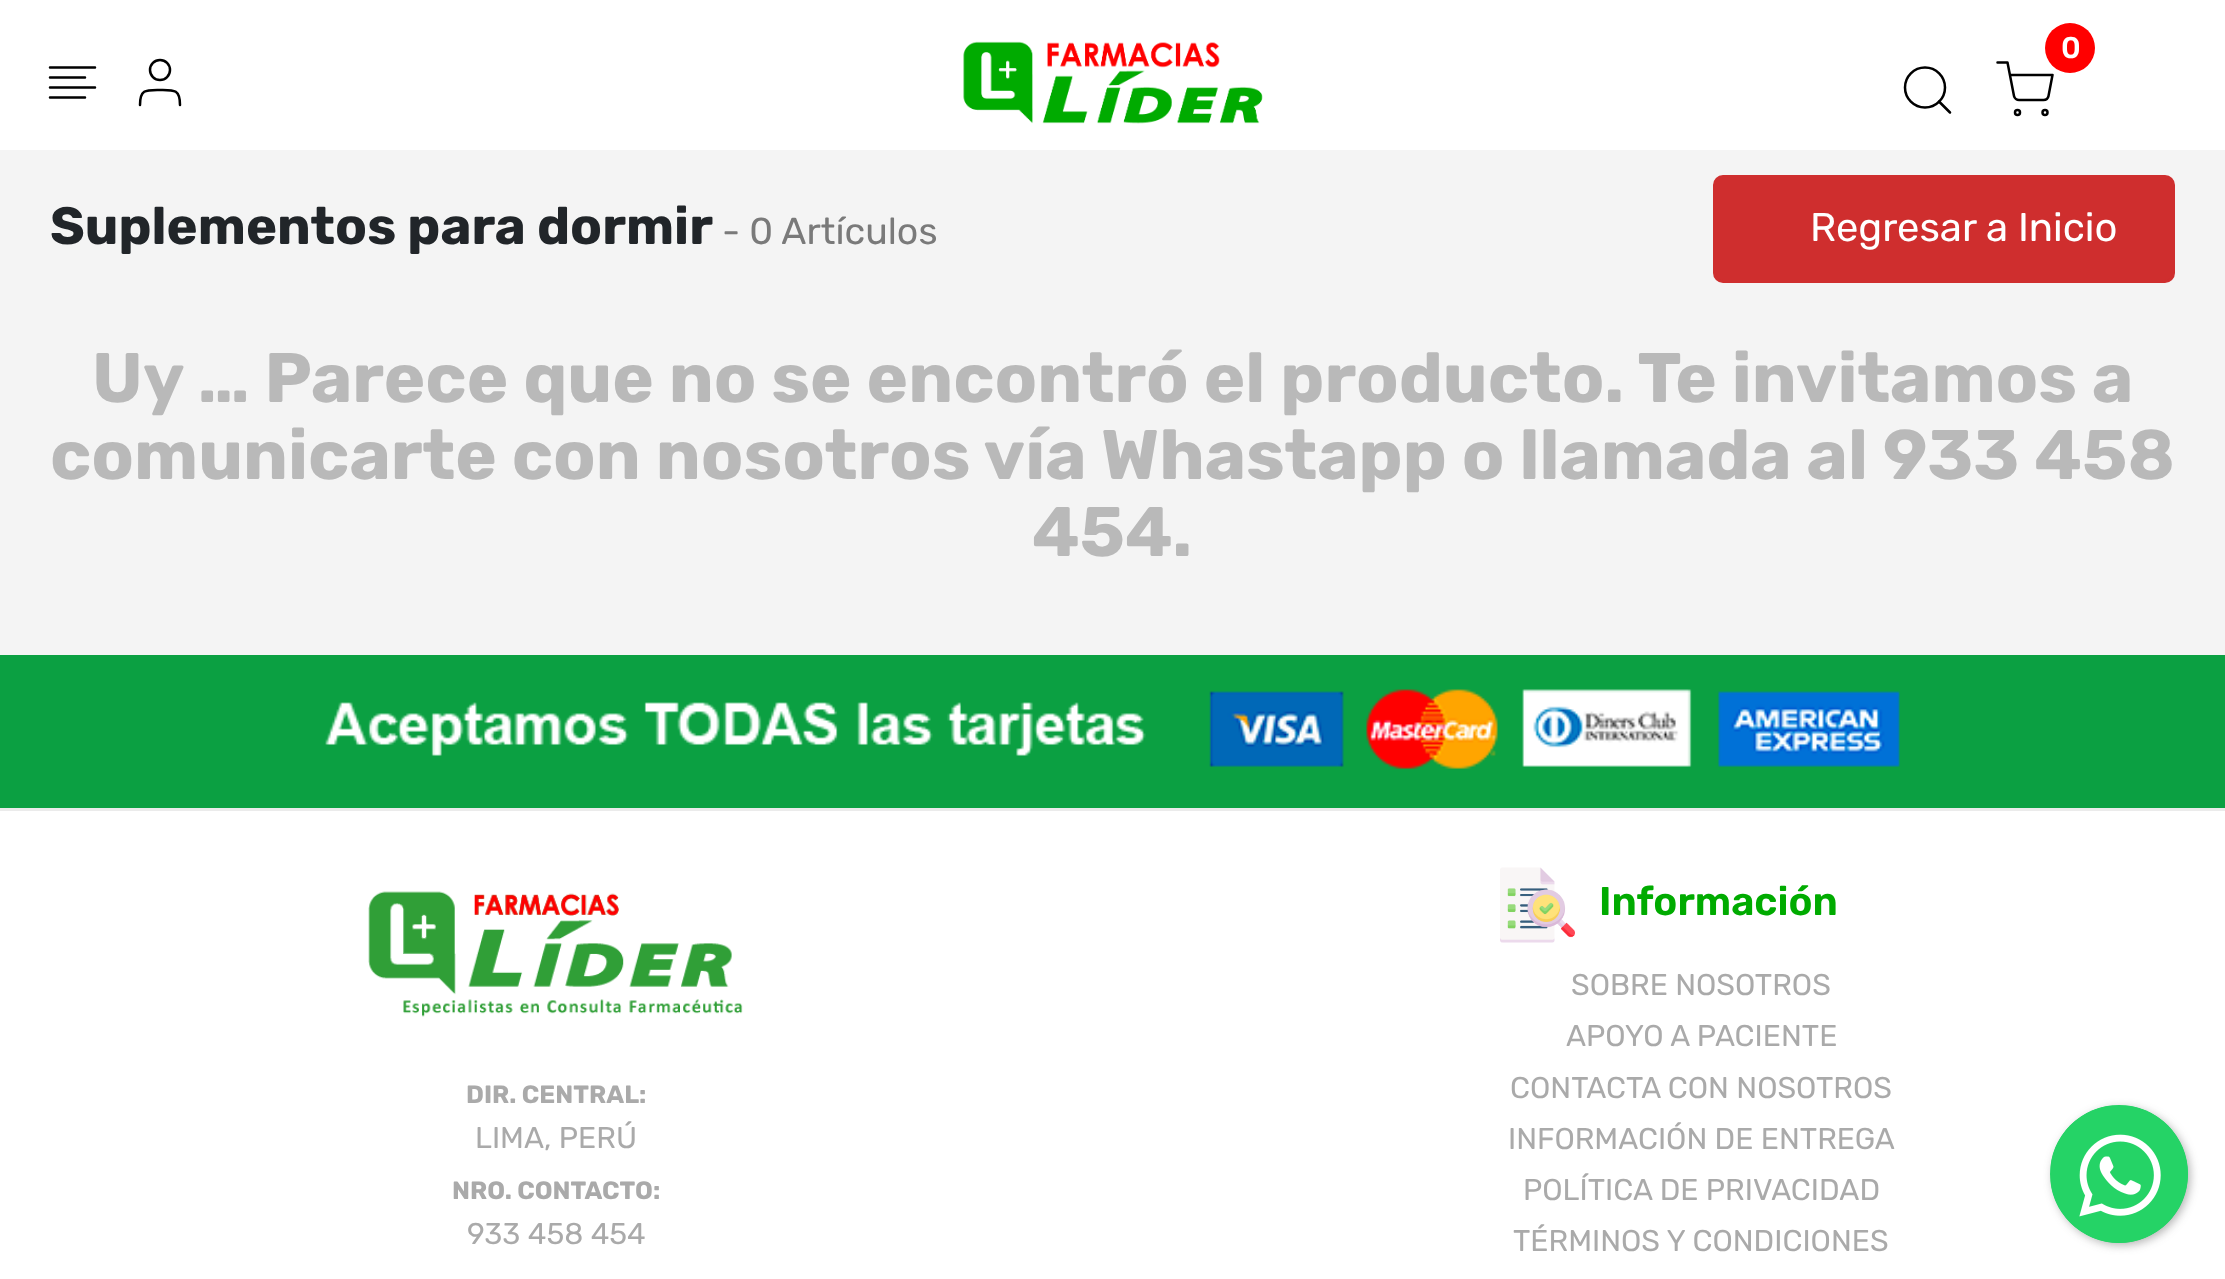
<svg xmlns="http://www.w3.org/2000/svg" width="2225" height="1279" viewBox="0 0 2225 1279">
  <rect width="100%" height="100%" fill="#fff"/>
  <path d="M85 77.5H50M95 67.5H50M95 87.5H50M85 97.5H50" fill="none" stroke="#000" stroke-width="2.5" stroke-linecap="round" stroke-linejoin="round"/>
  <path d="M180 105C180 89 174 90 160 90C146 90 140 89 140 105" fill="none" stroke="#000" stroke-width="2.5" stroke-linecap="round" stroke-linejoin="round"/>
  <circle cx="160" cy="70" r="10" fill="none" stroke="#000" stroke-width="2.5"/>
  <image x="963" y="41" width="300" height="83" href="img/1.png"/>
  <path d="M1997.5 62.5H2007.5L2014 96C2014.5 98.5 2017 100 2019 100H2043.5C2046 100 2048 98.5 2048.5 96L2052.5 75H2010" fill="none" stroke="#000" stroke-width="2.5" stroke-linecap="round" stroke-linejoin="round"/>
  <circle cx="2070" cy="48" r="25" fill="#f00"/>
  <circle cx="2017.5" cy="112.5" r="2.5" fill="none" stroke="#000" stroke-width="2.5"/>
  <circle cx="2045" cy="112.5" r="2.5" fill="none" stroke="#000" stroke-width="2.5"/>
  <circle cx="1925" cy="87.5" r="20" fill="none" stroke="#000" stroke-width="2.5"/>
  <path d="M1950 112.5L1939 101.5" fill="none" stroke="#000" stroke-width="2.5" stroke-linecap="round" stroke-linejoin="round"/>
  <path d="M0 150h2225v505H0z" fill="#f4f4f4"/>
  <rect x="1714.5" y="176.5" width="459" height="105" rx="8.5" fill="#cf2e2e" stroke="#cf2e2e" stroke-width="3"/>
  <path d="M0 655h2225v153H0z" fill="#0ba042"/>
  <image x="325" y="689" width="1575" height="80" href="img/2.png"/>
  <path d="M0 808h2225v3H0z" fill="#ebebeb"/>
  <image x="368" y="891" width="375" height="126" href="img/3.png"/>
  <image x="1500" y="867" width="75" height="76" href="img/4.png"/>
  <rect x="2053" y="1108" width="137" height="137" rx="68.5" fill="#3c3c3c66" filter="blur(5px)"/>
  <circle cx="2119" cy="1174" r="69" fill="#25d366"/>
  <image x="2051" y="1106" width="137" height="137" href="img/5.png"/>
  <text x="2061" y="58" font-family="Rubik" font-size="30" font-weight="500" fill="#fff">0</text>
  <text x="50" y="244" font-family="Rubik" font-size="52.5" font-weight="bold" fill="#212529">Suplementos para dormir</text>
  <text x="722" y="244" font-family="Rubik" font-size="37.5" fill="#7a7a7a">- 0 Artículos</text>
  <text x="1810" y="241" font-family="Rubik" font-size="40" fill="#fff">Regresar a Inicio</text>
  <g font-family="Rubik" font-size="70" font-weight="bold" fill="#b9b9b9">
    <text x="92" y="402">Uy … Parece que no se encontró el producto. Te invitamos a</text>
    <text x="50" y="479">comunicarte con nosotros vía Whastapp o llamada al 933 458</text>
    <text x="1032" y="556">454.</text>
  </g>
  <text x="466" y="1103" font-family="Rubik" font-size="25" font-weight="bold" fill="#aaa">DIR. CENTRAL:</text>
  <text x="475" y="1148" font-family="Rubik" font-size="30" fill="#aaa">LIMA, PERÚ</text>
  <text x="452" y="1199" font-family="Rubik" font-size="25" font-weight="bold" fill="#aaa">NRO. CONTACTO:</text>
  <text x="467" y="1244" font-family="Rubik" font-size="30" fill="#aaa">933 458 454</text>
  <text x="1599" y="915" font-family="Rubik" font-size="40" font-weight="600" fill="#00ab00">Información</text>
  <g font-family="Rubik" font-size="30" fill="#aaa">
    <text x="1571" y="995">SOBRE NOSOTROS</text>
    <text x="1566" y="1046">APOYO A PACIENTE</text>
    <text x="1510" y="1098">CONTACTA CON NOSOTROS</text>
    <text x="1508" y="1149">INFORMACIÓN DE ENTREGA</text>
    <text x="1523" y="1200">POLÍTICA DE PRIVACIDAD</text>
    <text x="1513" y="1251">TÉRMINOS Y CONDICIONES</text>
  </g>
</svg>
